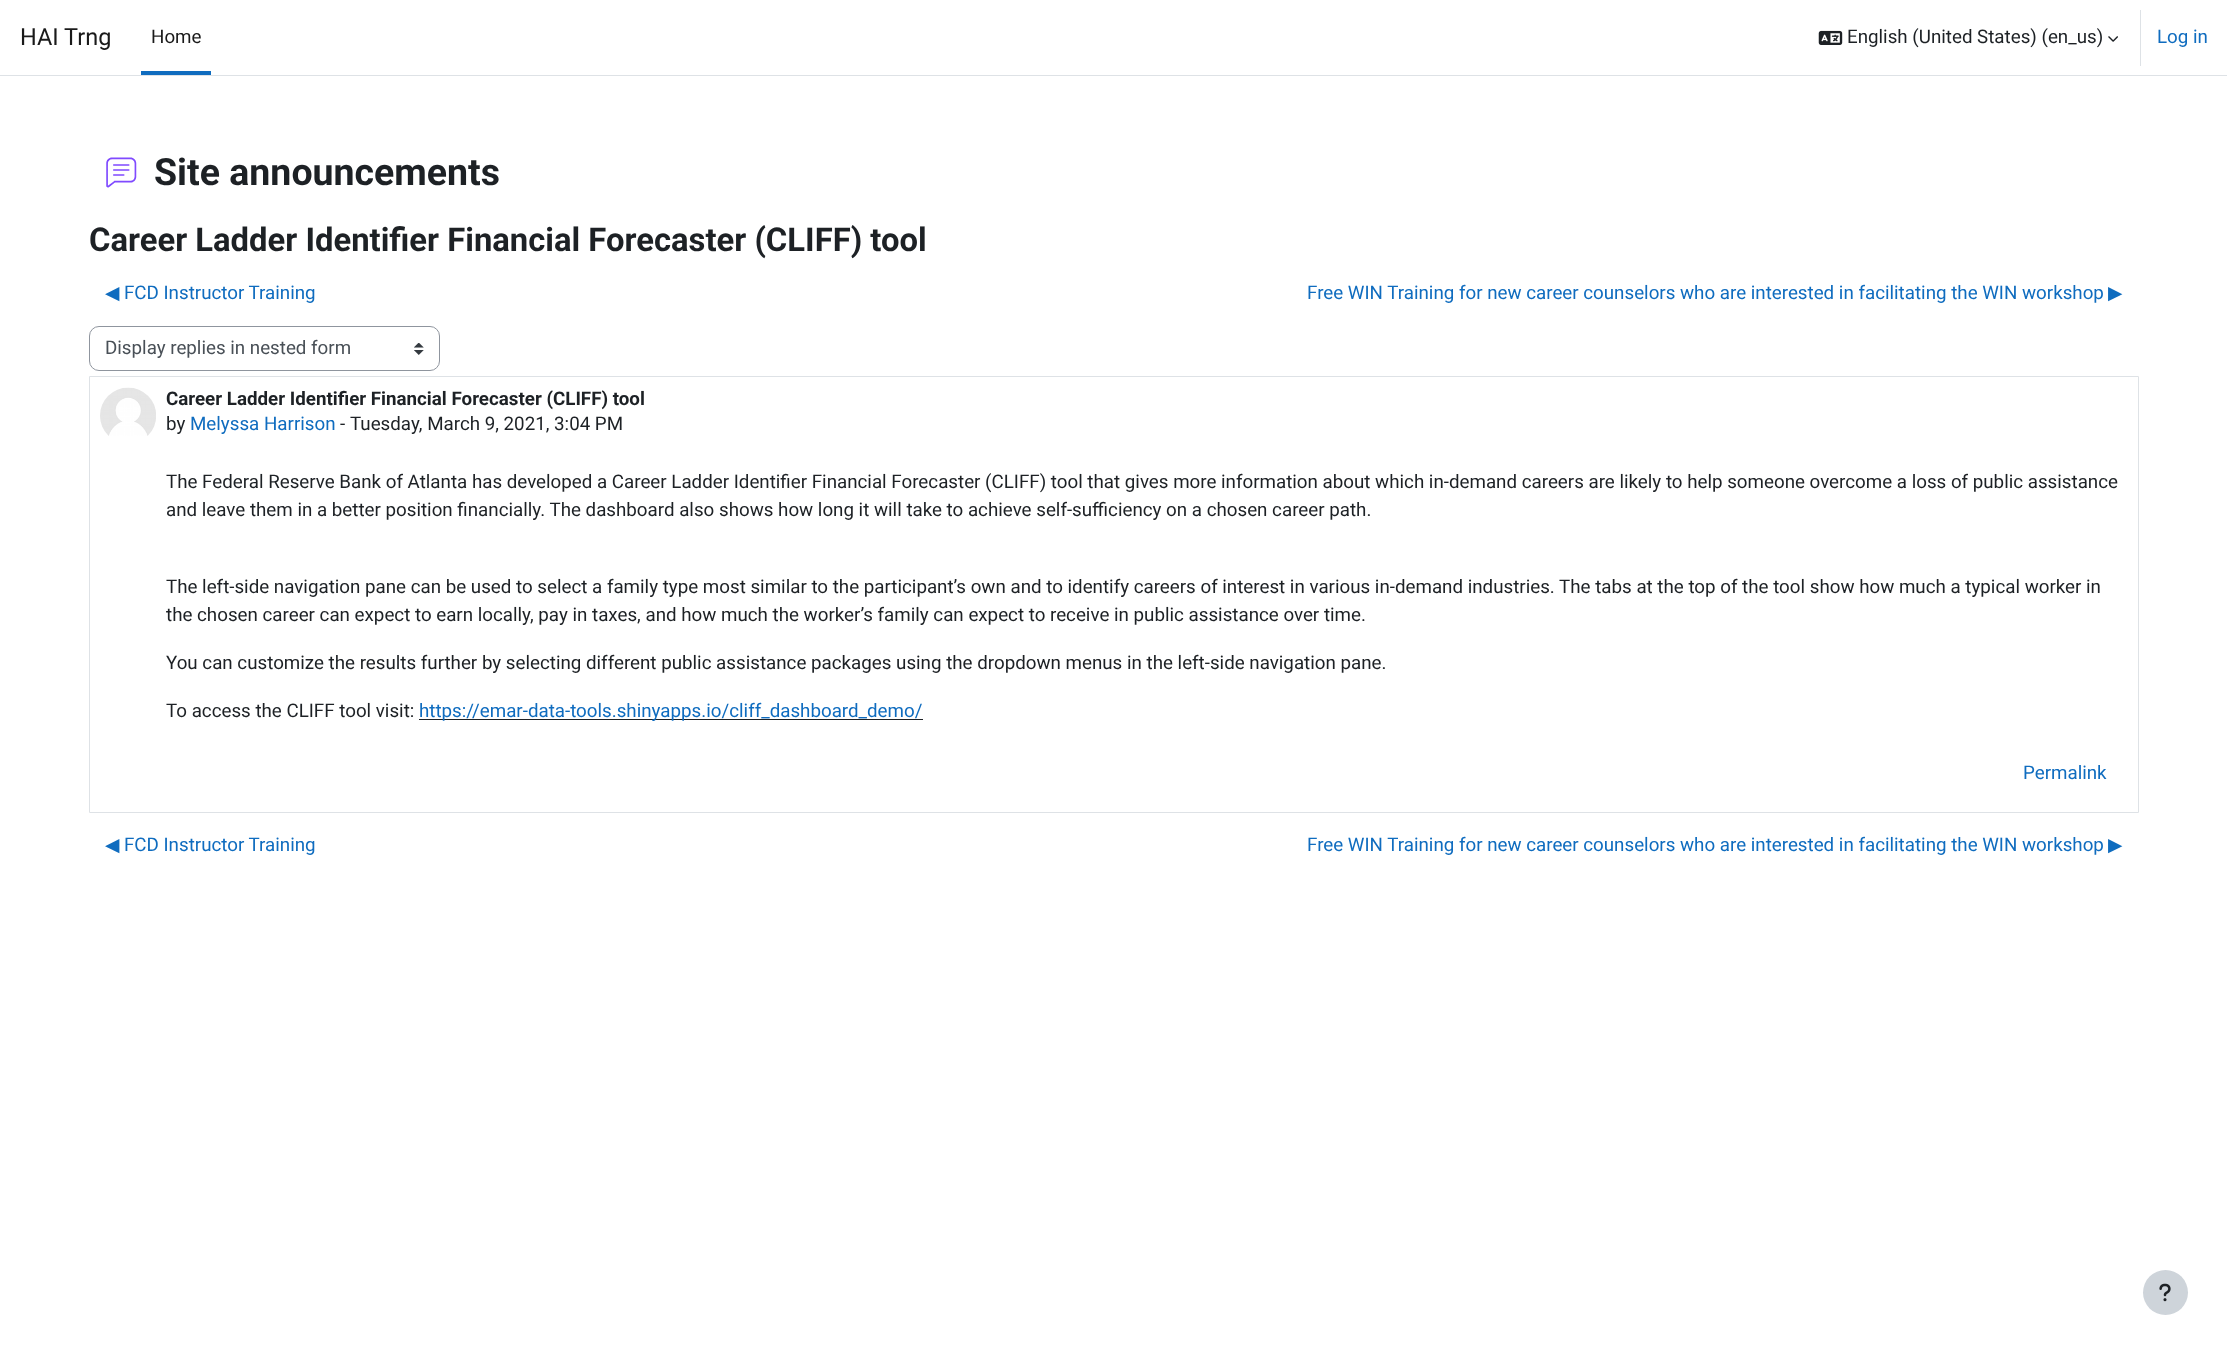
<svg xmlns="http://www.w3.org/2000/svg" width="2227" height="1354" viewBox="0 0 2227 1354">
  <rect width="100%" height="100%" fill="#fff"/>
  <path d="M0 75h2227v1H0z" fill="#dee2e6"/>
  <path d="M141 71h70v4H141z" fill="#0f6cbf"/>
  <image x="1818" y="30" width="25" height="15" href="img/1.png"/>
  <image x="2108" y="36" width="10" height="6" href="img/2.png"/>
  <path d="M2140 10h1v56H2140z" fill="#dee2e6"/>
  <image x="106" y="157" width="31" height="31" href="img/3.png"/>
  <image x="414" y="343" width="10" height="12" href="img/4.png"/>
  <rect x="89.5" y="326.5" width="350" height="44" rx="9.5" fill="none" stroke="#8f959e"/>
  <path d="M89.5 376.5h2049v436H89.5z" fill="none" stroke="#dee2e6"/>
  <image x="100" y="387" width="56" height="49" href="img/5.png"/>
  <path d="M419 719h504v1H419z" fill="#1d2125"/>
  <circle cx="2165.5" cy="1292.5" r="22.5" fill="#ced4da"/>
  <image x="2159" y="1283" width="12" height="19" href="img/6.png"/>
  <text x="20" y="45" font-family="Roboto" font-size="23.5" fill="#1a1a1a">HAI Trng</text>
  <text x="151" y="43" font-family="Roboto" font-size="18.75" fill="#1a1a1a">Home</text>
  <text x="1847" y="43" font-family="Roboto" font-size="18.75" fill="#1d2125">English (United States) (en_us)</text>
  <text x="2157" y="43" font-family="Roboto" font-size="18.75" fill="#0f6cbf">Log in</text>
  <text x="154" y="185" font-family="Roboto" font-size="37.5" font-weight="bold" fill="#1d2125">Site announcements</text>
  <text x="89" y="251" font-family="Roboto" font-size="32.8" font-weight="bold" fill="#1d2125">Career Ladder Identifier Financial Forecaster (CLIFF) tool</text>
  <text x="105" y="299" font-family="DejaVu Sans" font-size="18.75" fill="#0f6cbf">◀︎</text>
  <g font-family="Roboto" font-size="18.75" fill="#0f6cbf">
    <text x="124" y="299">FCD Instructor Training</text>
    <text x="1307" y="299">Free WIN Training for new career counselors who are interested in facilitating the WIN workshop</text>
  </g>
  <text x="2108" y="299" font-family="DejaVu Sans" font-size="18.75" fill="#0f6cbf">▶︎</text>
  <text x="105" y="354" font-family="Roboto" font-size="18.75" fill="#495057">Display replies in nested form</text>
  <text x="166" y="405" font-family="Roboto" font-size="18.75" font-weight="bold" fill="#1d2125">Career Ladder Identifier Financial Forecaster (CLIFF) tool</text>
  <text x="166" y="430" font-family="Roboto" font-size="18.75" fill="#1d2125">by</text>
  <text x="190" y="430" font-family="Roboto" font-size="18.75" fill="#0f6cbf">Melyssa Harrison</text>
  <g font-family="Roboto" font-size="18.75" fill="#1d2125">
    <text x="340" y="430">-</text>
    <text x="350" y="430">Tuesday, March 9, 2021, 3:04 PM</text>
    <text x="166" y="488">The Federal Reserve Bank of Atlanta has developed a Career Ladder Identifier Financial Forecaster (CLIFF) tool that gives more information about which in-demand careers are likely to help someone overcome a loss of public assistance</text>
    <text x="166" y="516">and leave them in a better position financially. The dashboard also shows how long it will take to achieve self-sufficiency on a chosen career path.</text>
    <text x="166" y="593">The left-side navigation pane can be used to select a family type most similar to the participant’s own and to identify careers of interest in various in-demand industries. The tabs at the top of the tool show how much a typical worker in</text>
    <text x="166" y="621">the chosen career can expect to earn locally, pay in taxes, and how much the worker’s family can expect to receive in public assistance over time.</text>
    <text x="166" y="669">You can customize the results further by selecting different public assistance packages using the dropdown menus in the left-side navigation pane.</text>
    <text x="166" y="717">To access the CLIFF tool visit:</text>
  </g>
  <g font-family="Roboto" font-size="18.75" fill="#0f6cbf">
    <text x="419" y="717">https://emar-data-tools.shinyapps.io/cliff_dashboard_demo/</text>
    <text x="2023" y="779">Permalink</text>
  </g>
  <text x="105" y="851" font-family="DejaVu Sans" font-size="18.75" fill="#0f6cbf">◀︎</text>
  <g font-family="Roboto" font-size="18.75" fill="#0f6cbf">
    <text x="124" y="851">FCD Instructor Training</text>
    <text x="1307" y="851">Free WIN Training for new career counselors who are interested in facilitating the WIN workshop</text>
  </g>
  <text x="2108" y="851" font-family="DejaVu Sans" font-size="18.75" fill="#0f6cbf">▶︎</text>
</svg>
